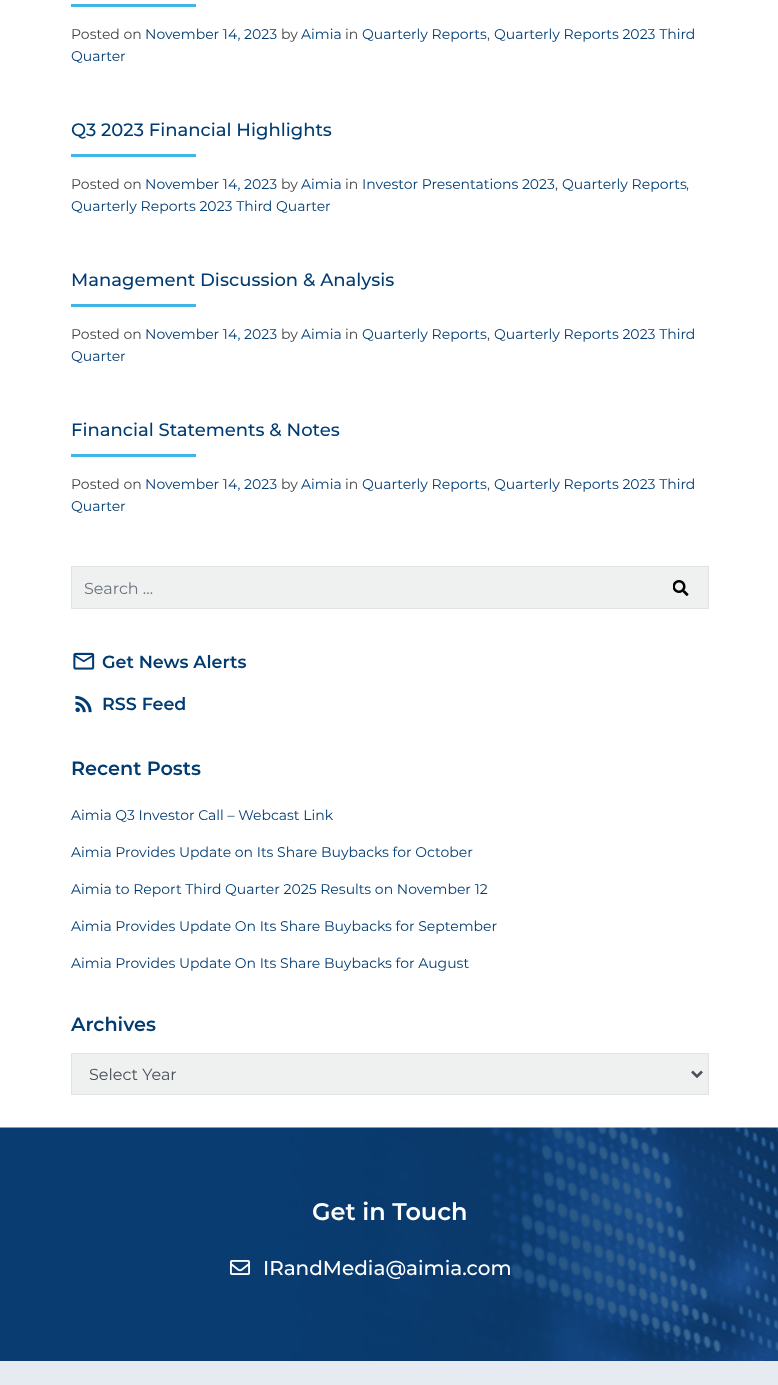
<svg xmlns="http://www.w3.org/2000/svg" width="778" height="1385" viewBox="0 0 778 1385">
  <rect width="100%" height="100%" fill="#fff"/>
  <path d="M71 4h125v3H71z" fill="#3fb6e5"/>
  <path d="M71 154h125v3H71z" fill="#3fb6e5"/>
  <path d="M71 304h125v3H71z" fill="#3fb6e5"/>
  <path d="M71 454h125v3H71z" fill="#3fb6e5"/>
  <path d="M71.5 566.5h637v42H71.5z" fill="#eff0f0" stroke="#e1e2e3"/>
  <image x="673" y="580" width="16" height="16" href="img/1.png"/>
  <image x="73" y="652" width="22" height="18" href="img/2.png"/>
  <image x="75" y="695" width="17" height="18" href="img/3.png"/>
  <path d="M71.5 1053.5h637v41H71.5z" fill="#eff0f0" stroke="#e1e2e3"/>
  <path d="M692 1071.5L697 1076.5L702 1071.5" fill="none" stroke="#495057" stroke-width="2.5"/>
  <image x="0" y="1127" width="778" height="234" href="img/4.png"/>
  <image x="230" y="1260" width="20" height="15" href="img/5.png"/>
  <path d="M0 1361h778v24H0z" fill="#e6ebf1"/>
  <text x="71" y="39" font-family="Montserrat" font-size="14" fill="#444">Posted on</text>
  <text x="145" y="39" font-family="Montserrat" font-size="14" fill="#003c72">November 14, 2023</text>
  <text x="281" y="39" font-family="Montserrat" font-size="14" fill="#444">by</text>
  <text x="301" y="39" font-family="Montserrat" font-size="14" fill="#003c72">Aimia</text>
  <text x="345" y="39" font-family="Montserrat" font-size="14" fill="#444">in</text>
  <text x="362" y="39" font-family="Montserrat" font-size="14" fill="#003c72">Quarterly Reports</text>
  <text x="487" y="39" font-family="Montserrat" font-size="14" fill="#444">,</text>
  <g font-family="Montserrat" font-size="14" fill="#003c72">
    <text x="494" y="39">Quarterly Reports 2023 Third</text>
    <text x="71" y="61">Quarter</text>
  </g>
  <text x="71" y="136" font-family="Montserrat" font-size="18" font-weight="500" fill="#003c72">Q3 2023 Financial Highlights</text>
  <text x="71" y="189" font-family="Montserrat" font-size="14" fill="#444">Posted on</text>
  <text x="145" y="189" font-family="Montserrat" font-size="14" fill="#003c72">November 14, 2023</text>
  <text x="281" y="189" font-family="Montserrat" font-size="14" fill="#444">by</text>
  <text x="301" y="189" font-family="Montserrat" font-size="14" fill="#003c72">Aimia</text>
  <text x="345" y="189" font-family="Montserrat" font-size="14" fill="#444">in</text>
  <text x="362" y="189" font-family="Montserrat" font-size="14" fill="#003c72">Investor Presentations 2023</text>
  <text x="555" y="189" font-family="Montserrat" font-size="14" fill="#444">,</text>
  <text x="562" y="189" font-family="Montserrat" font-size="14" fill="#003c72">Quarterly Reports</text>
  <text x="686" y="189" font-family="Montserrat" font-size="14" fill="#444">,</text>
  <text x="71" y="211" font-family="Montserrat" font-size="14" fill="#003c72">Quarterly Reports 2023 Third Quarter</text>
  <text x="71" y="286" font-family="Montserrat" font-size="18" font-weight="500" fill="#003c72">Management Discussion &amp; Analysis</text>
  <text x="71" y="339" font-family="Montserrat" font-size="14" fill="#444">Posted on</text>
  <text x="145" y="339" font-family="Montserrat" font-size="14" fill="#003c72">November 14, 2023</text>
  <text x="281" y="339" font-family="Montserrat" font-size="14" fill="#444">by</text>
  <text x="301" y="339" font-family="Montserrat" font-size="14" fill="#003c72">Aimia</text>
  <text x="345" y="339" font-family="Montserrat" font-size="14" fill="#444">in</text>
  <text x="362" y="339" font-family="Montserrat" font-size="14" fill="#003c72">Quarterly Reports</text>
  <text x="487" y="339" font-family="Montserrat" font-size="14" fill="#444">,</text>
  <g font-family="Montserrat" font-size="14" fill="#003c72">
    <text x="494" y="339">Quarterly Reports 2023 Third</text>
    <text x="71" y="361">Quarter</text>
  </g>
  <text x="71" y="436" font-family="Montserrat" font-size="18" font-weight="500" fill="#003c72">Financial Statements &amp; Notes</text>
  <text x="71" y="489" font-family="Montserrat" font-size="14" fill="#444">Posted on</text>
  <text x="145" y="489" font-family="Montserrat" font-size="14" fill="#003c72">November 14, 2023</text>
  <text x="281" y="489" font-family="Montserrat" font-size="14" fill="#444">by</text>
  <text x="301" y="489" font-family="Montserrat" font-size="14" fill="#003c72">Aimia</text>
  <text x="345" y="489" font-family="Montserrat" font-size="14" fill="#444">in</text>
  <text x="362" y="489" font-family="Montserrat" font-size="14" fill="#003c72">Quarterly Reports</text>
  <text x="487" y="489" font-family="Montserrat" font-size="14" fill="#444">,</text>
  <g font-family="Montserrat" font-size="14" fill="#003c72">
    <text x="494" y="489">Quarterly Reports 2023 Third</text>
    <text x="71" y="511">Quarter</text>
  </g>
  <text x="84" y="594" font-family="Montserrat" font-size="16" fill="#6c757d">Search …</text>
  <g font-family="Montserrat" font-size="17.5" font-weight="600" fill="#003c72">
    <text x="102" y="668">Get News Alerts</text>
    <text x="102" y="710">RSS Feed</text>
  </g>
  <text x="71" y="775" font-family="Montserrat" font-size="19.25" font-weight="600" fill="#003c72">Recent Posts</text>
  <g font-family="Montserrat" font-size="14" fill="#003c72">
    <text x="71" y="820">Aimia Q3 Investor Call – Webcast Link</text>
    <text x="71" y="857">Aimia Provides Update on Its Share Buybacks for October</text>
    <text x="71" y="894">Aimia to Report Third Quarter 2025 Results on November 12</text>
    <text x="71" y="931">Aimia Provides Update On Its Share Buybacks for September</text>
    <text x="71" y="968">Aimia Provides Update On Its Share Buybacks for August</text>
  </g>
  <text x="71" y="1031" font-family="Montserrat" font-size="19.25" font-weight="600" fill="#003c72">Archives</text>
  <text x="89" y="1080" font-family="Montserrat" font-size="16" fill="#495057">Select Year</text>
  <text x="312" y="1220" font-family="Montserrat" font-size="24" font-weight="600" fill="#fff">Get in Touch</text>
  <text x="263" y="1275" font-family="Montserrat" font-size="20" font-weight="500" fill="#fff">IRandMedia@aimia.com</text>
</svg>
